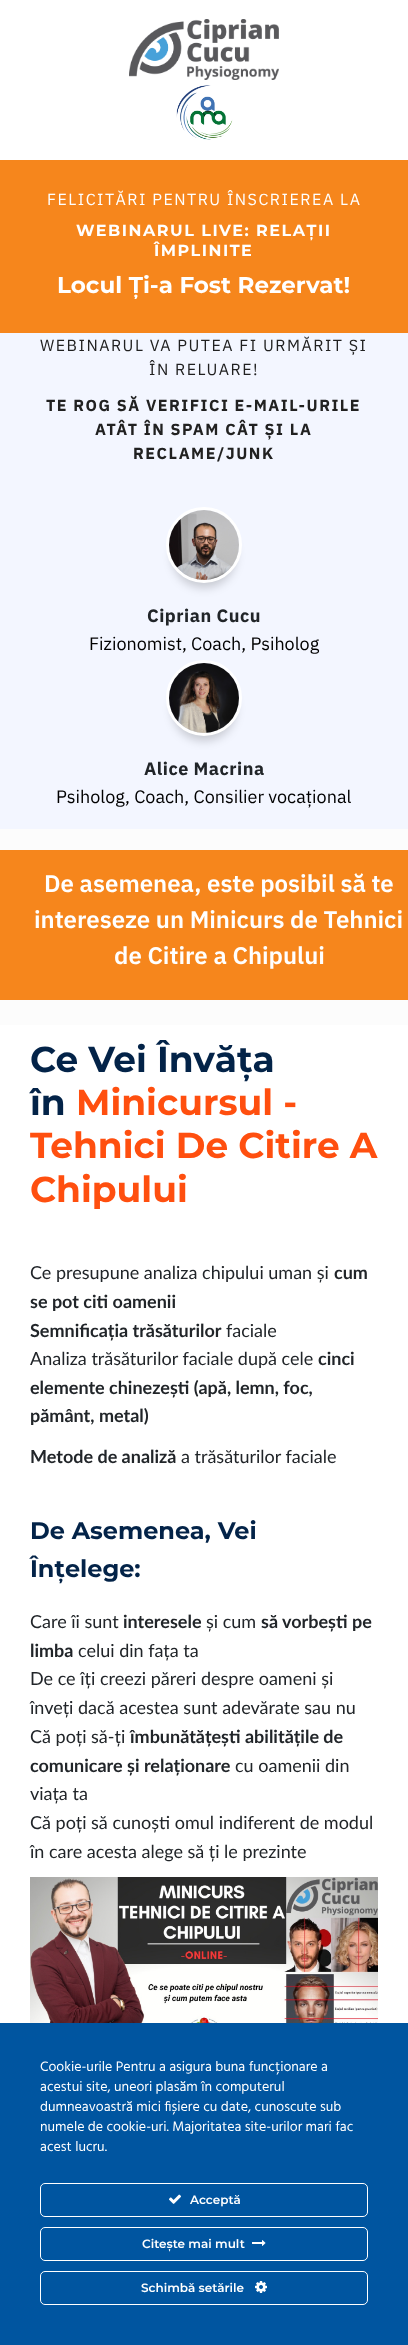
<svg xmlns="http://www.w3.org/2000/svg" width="408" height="2345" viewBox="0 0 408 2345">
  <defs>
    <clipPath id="clip1"><path d="M30 1040h348v825H30z"/></clipPath>
  </defs>
  <rect width="100%" height="100%" fill="#fff"/>
  <image x="129" y="19" width="150" height="61" href="img/1.png"/>
  <image x="176" y="85" width="57" height="55" href="img/2.png"/>
  <path d="M0 160h408v173H0z" fill="#f6861c"/>
  <path d="M0 333h408v496H0z" fill="#f3f6ff"/>
  <rect x="172" y="524" width="64" height="64" rx="32" fill="#0000002e" filter="blur(5px)"/>
  <circle cx="204" cy="545" r="36.5" fill="none" stroke="#fff" stroke-width="3"/>
  <image x="169" y="510" width="70" height="70" href="img/3.png"/>
  <rect x="172" y="677" width="64" height="64" rx="32" fill="#0000002e" filter="blur(5px)"/>
  <circle cx="204" cy="698" r="36.5" fill="none" stroke="#fff" stroke-width="3"/>
  <image x="169" y="663" width="70" height="70" href="img/4.png"/>
  <path d="M0 829h408v196H0z" fill="#fcfcfc"/>
  <path d="M0 850h408v150H0z" fill="#f6861c"/>
  <image x="30" y="1877" width="348" height="146" href="img/5.png"/>
  <path d="M0 2023h408v322H0z" fill="#0055a0"/>
  <rect x="40.5" y="2183.5" width="327" height="33" rx="4.5" fill="none" stroke="#fff"/>
  <image x="169" y="2194" width="12" height="10" href="img/6.png"/>
  <rect x="40.5" y="2227.5" width="327" height="33" rx="4.5" fill="none" stroke="#fff"/>
  <image x="252" y="2240" width="14" height="6" href="img/7.png"/>
  <rect x="40.5" y="2271.5" width="327" height="33" rx="4.5" fill="none" stroke="#fff"/>
  <image x="255" y="2281" width="12" height="12" href="img/8.png"/>
  <text x="47" y="205" font-family="IBM Plex Sans" font-size="16" letter-spacing="1.5" fill="#fff">FELICITĂRI PENTRU ÎNSCRIEREA LA</text>
  <g font-family="Montserrat" font-size="16" font-weight="bold" letter-spacing="1.5" fill="#fff">
    <text x="76" y="236">WEBINARUL LIVE: RELAȚII</text>
    <text x="154" y="256">ÎMPLINITE</text>
  </g>
  <text x="57" y="293" font-family="Montserrat" font-size="23" font-weight="bold" fill="#fff">Locul Ți-a Fost Rezervat!</text>
  <g font-family="IBM Plex Sans" font-size="16" letter-spacing="1.5" fill="#212121">
    <text x="40" y="351">WEBINARUL VA PUTEA FI URMĂRIT ȘI</text>
    <text x="149" y="375">ÎN RELUARE!</text>
  </g>
  <g font-family="IBM Plex Sans" font-size="16" font-weight="bold" letter-spacing="1.5" fill="#212121">
    <text x="46" y="411">TE ROG SĂ VERIFICI E-MAIL-URILE</text>
    <text x="95" y="435">ATÂT ÎN SPAM CÂT ȘI LA</text>
    <text x="133" y="459">RECLAME/JUNK</text>
  </g>
  <text x="147" y="622" font-family="IBM Plex Sans" font-size="18" font-weight="bold" letter-spacing="0.5" fill="#212529">Ciprian Cucu</text>
  <text x="89" y="650" font-family="IBM Plex Sans" font-size="18" fill="#000">Fizionomist, Coach, Psiholog</text>
  <text x="144" y="775" font-family="IBM Plex Sans" font-size="18" font-weight="bold" letter-spacing="0.5" fill="#212529">Alice Macrina</text>
  <text x="56" y="803" font-family="IBM Plex Sans" font-size="18" fill="#000">Psiholog, Coach, Consilier vocațional</text>
  <g font-family="IBM Plex Sans" font-size="24" font-weight="600" fill="#fff">
    <text x="44" y="892">De asemenea, este posibil să te</text>
    <text x="34" y="928">intereseze un Minicurs de Tehnici</text>
    <text x="114" y="964">de Citire a Chipului</text>
  </g>
  <g clip-path="url(#clip1)">
    <text x="30" y="1072" font-family="Montserrat" font-size="36" font-weight="bold" fill="#032348">Ce Vei Învăța</text>
  </g>
  <text x="30" y="1115" font-family="Montserrat" font-size="36" font-weight="bold" fill="#032348">în</text>
  <g font-family="Montserrat" font-size="36" font-weight="bold" fill="#ff4f0f">
    <text x="76" y="1115">Minicursul -</text>
    <text x="30" y="1158">Tehnici De Citire A</text>
    <text x="30" y="1202">Chipului</text>
  </g>
  <text x="30" y="1279" font-family="Lato" font-size="18" fill="#212529">Ce presupune analiza chipului uman și</text>
  <g font-family="Lato" font-size="18" font-weight="bold" fill="#212529">
    <text x="334" y="1279">cum</text>
    <text x="30" y="1308">se pot citi oamenii</text>
    <text x="30" y="1337">Semnificația trăsăturilor</text>
  </g>
  <g font-family="Lato" font-size="18" fill="#212529">
    <text x="226" y="1337">faciale</text>
    <text x="30" y="1365">Analiza trăsăturilor faciale după cele</text>
  </g>
  <g font-family="Lato" font-size="18" font-weight="bold" fill="#212529">
    <text x="318" y="1365">cinci</text>
    <text x="30" y="1394">elemente chinezești (apă, lemn, foc,</text>
    <text x="30" y="1422">pământ, metal)</text>
    <text x="30" y="1463">Metode de analiză</text>
  </g>
  <text x="181" y="1463" font-family="Lato" font-size="18" fill="#212529">a trăsăturilor faciale</text>
  <g font-family="Montserrat" font-size="24" font-weight="bold" fill="#032348">
    <text x="30" y="1539">De Asemenea, Vei</text>
    <text x="30" y="1577">Înțelege:</text>
  </g>
  <text x="30" y="1628" font-family="Lato" font-size="18" fill="#212529">Care îi sunt</text>
  <text x="123" y="1628" font-family="Lato" font-size="18" font-weight="bold" fill="#212529">interesele</text>
  <text x="206" y="1628" font-family="Lato" font-size="18" fill="#212529">și cum</text>
  <g font-family="Lato" font-size="18" font-weight="bold" fill="#212529">
    <text x="261" y="1628">să vorbești pe</text>
    <text x="30" y="1657">limba</text>
  </g>
  <g font-family="Lato" font-size="18" fill="#212529">
    <text x="78" y="1657">celui din fața ta</text>
    <text x="30" y="1685">De ce îți creezi păreri despre oameni și</text>
    <text x="30" y="1714">înveți dacă acestea sunt adevărate sau nu</text>
    <text x="30" y="1743">Că poți să-ți</text>
  </g>
  <g font-family="Lato" font-size="18" font-weight="bold" fill="#212529">
    <text x="130" y="1743">îmbunătățești abilitățile de</text>
    <text x="30" y="1772">comunicare și relaționare</text>
  </g>
  <g font-family="Lato" font-size="18" fill="#212529">
    <text x="235" y="1772">cu oamenii din</text>
    <text x="30" y="1800">viața ta</text>
    <text x="30" y="1829">Că poți să cunoști omul indiferent de modul</text>
    <text x="30" y="1858">în care acesta alege să ți le prezinte</text>
  </g>
  <g font-family="Hind" font-size="14" fill="#fff">
    <text x="40" y="2071">Cookie-urile Pentru a asigura buna funcționare a</text>
    <text x="40" y="2091">acestui site, uneori plasăm în computerul</text>
    <text x="40" y="2111">dumneavoastră mici fișiere cu date, cunoscute sub</text>
    <text x="40" y="2131">numele de cookie-uri. Majoritatea site-urilor mari fac</text>
    <text x="40" y="2151">acest lucru.</text>
  </g>
  <g font-family="Montserrat" font-size="12" font-weight="600" fill="#fff">
    <text x="190" y="2204">Acceptă</text>
    <text x="142" y="2248">Citește mai mult</text>
    <text x="141" y="2292">Schimbă setările</text>
  </g>
</svg>
